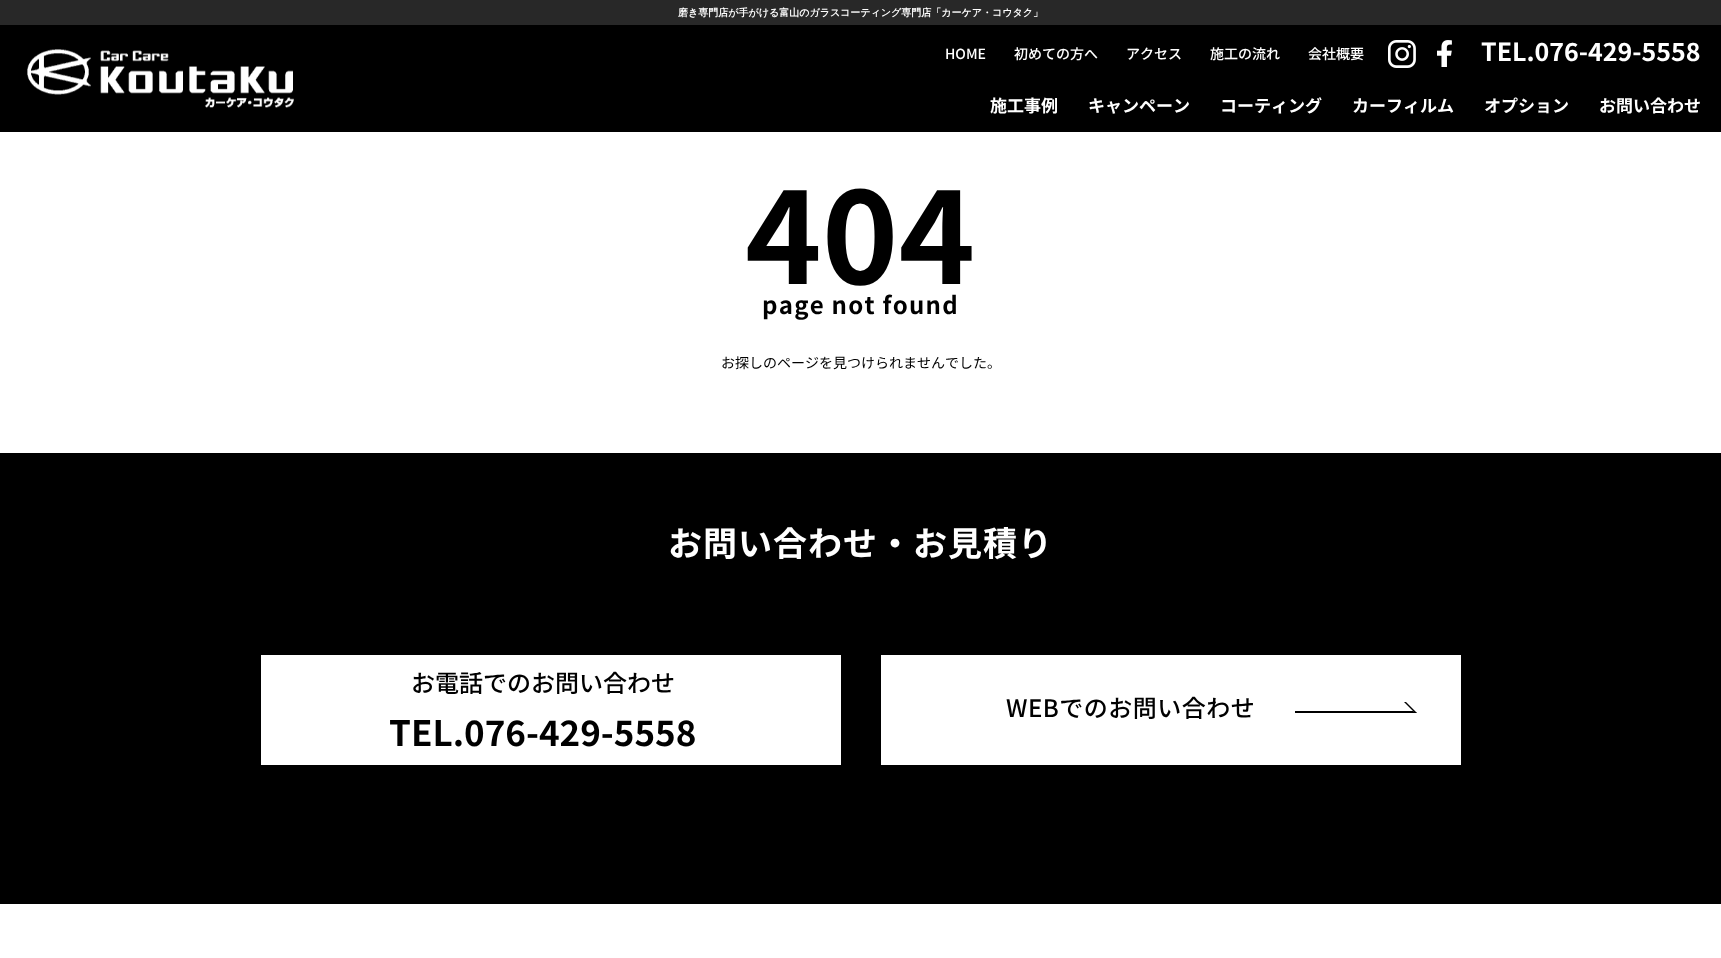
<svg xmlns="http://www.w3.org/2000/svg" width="1721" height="958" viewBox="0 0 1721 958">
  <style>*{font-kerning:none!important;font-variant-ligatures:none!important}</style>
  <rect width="100%" height="100%" fill="#fff"/>
  <path d="M0 0h1721v25H0z" fill="#282828"/>
  <path d="M0 25h1721v107H0z" fill="#000"/>
  <image x="27" y="49" width="267" height="59" href="img/1.png"/>
  <image x="1388" y="40" width="28" height="28" href="img/2.png"/>
  <image x="1437" y="40" width="15" height="27" href="img/3.png"/>
  <path d="M0 453h1721v451H0z" fill="#000"/>
  <path d="M261 655h580v110H261z" fill="#fff"/>
  <path d="M881 655h580v110H881z" fill="#fff"/>
  <path d="M1404 702H1406L1417 713H1415Z" fill="#000"/>
  <path d="M1417 713H1295V711H1413Z" fill="#000"/>
  <text x="678" y="16" font-family="WenQuanYi Zen Hei" font-size="10" font-weight="bold" fill="#fff">磨き専門店が手がける富山のガラスコーティング専門店「カーケア・コウタク」</text>
  <g font-family="Noto Sans JP" font-size="14" font-weight="500" fill="#fff">
    <text x="945" y="59">HOME</text>
    <text x="1014" y="59">初めての方へ</text>
    <text x="1126" y="59">アクセス</text>
    <text x="1210" y="59">施工の流れ</text>
    <text x="1308" y="59">会社概要</text>
  </g>
  <text x="1481" y="61" font-family="Noto Sans JP" font-size="25" font-weight="bold" fill="#fff">TEL.076-429-5558</text>
  <g font-family="Noto Sans JP" font-size="17" font-weight="bold" fill="#fff">
    <text x="990" y="112">施工事例</text>
    <text x="1088" y="112">キャンペーン</text>
    <text x="1220" y="112">コーティング</text>
    <text x="1352" y="112">カーフィルム</text>
    <text x="1484" y="112">オプション</text>
    <text x="1599" y="112">お問い合わせ</text>
  </g>
  <text x="745" y="284" font-family="Noto Sans JP" font-size="130" font-weight="bold" fill="#000">404</text>
  <text x="762" y="314" font-family="Noto Sans JP" font-size="24" font-weight="bold" letter-spacing="1.25" fill="#000">page not found</text>
  <text x="721" y="368" font-family="Noto Sans JP" font-size="14" fill="#000">お探しのページを見つけられませんでした。</text>
  <text x="668" y="556" font-family="Noto Sans JP" font-size="34" font-weight="bold" letter-spacing="1" fill="#fff">お問い合わせ・お見積り</text>
  <text x="411" y="692" font-family="Noto Sans JP" font-size="24" font-weight="500" fill="#000">お電話でのお問い合わせ</text>
  <text x="389" y="746" font-family="Noto Sans JP" font-size="35" font-weight="bold" fill="#000">TEL.076-429-5558</text>
  <text x="1006" y="717" font-family="Noto Sans JP" font-size="24" font-weight="500" letter-spacing="0.5" fill="#000">WEBでのお問い合わせ</text>
</svg>
